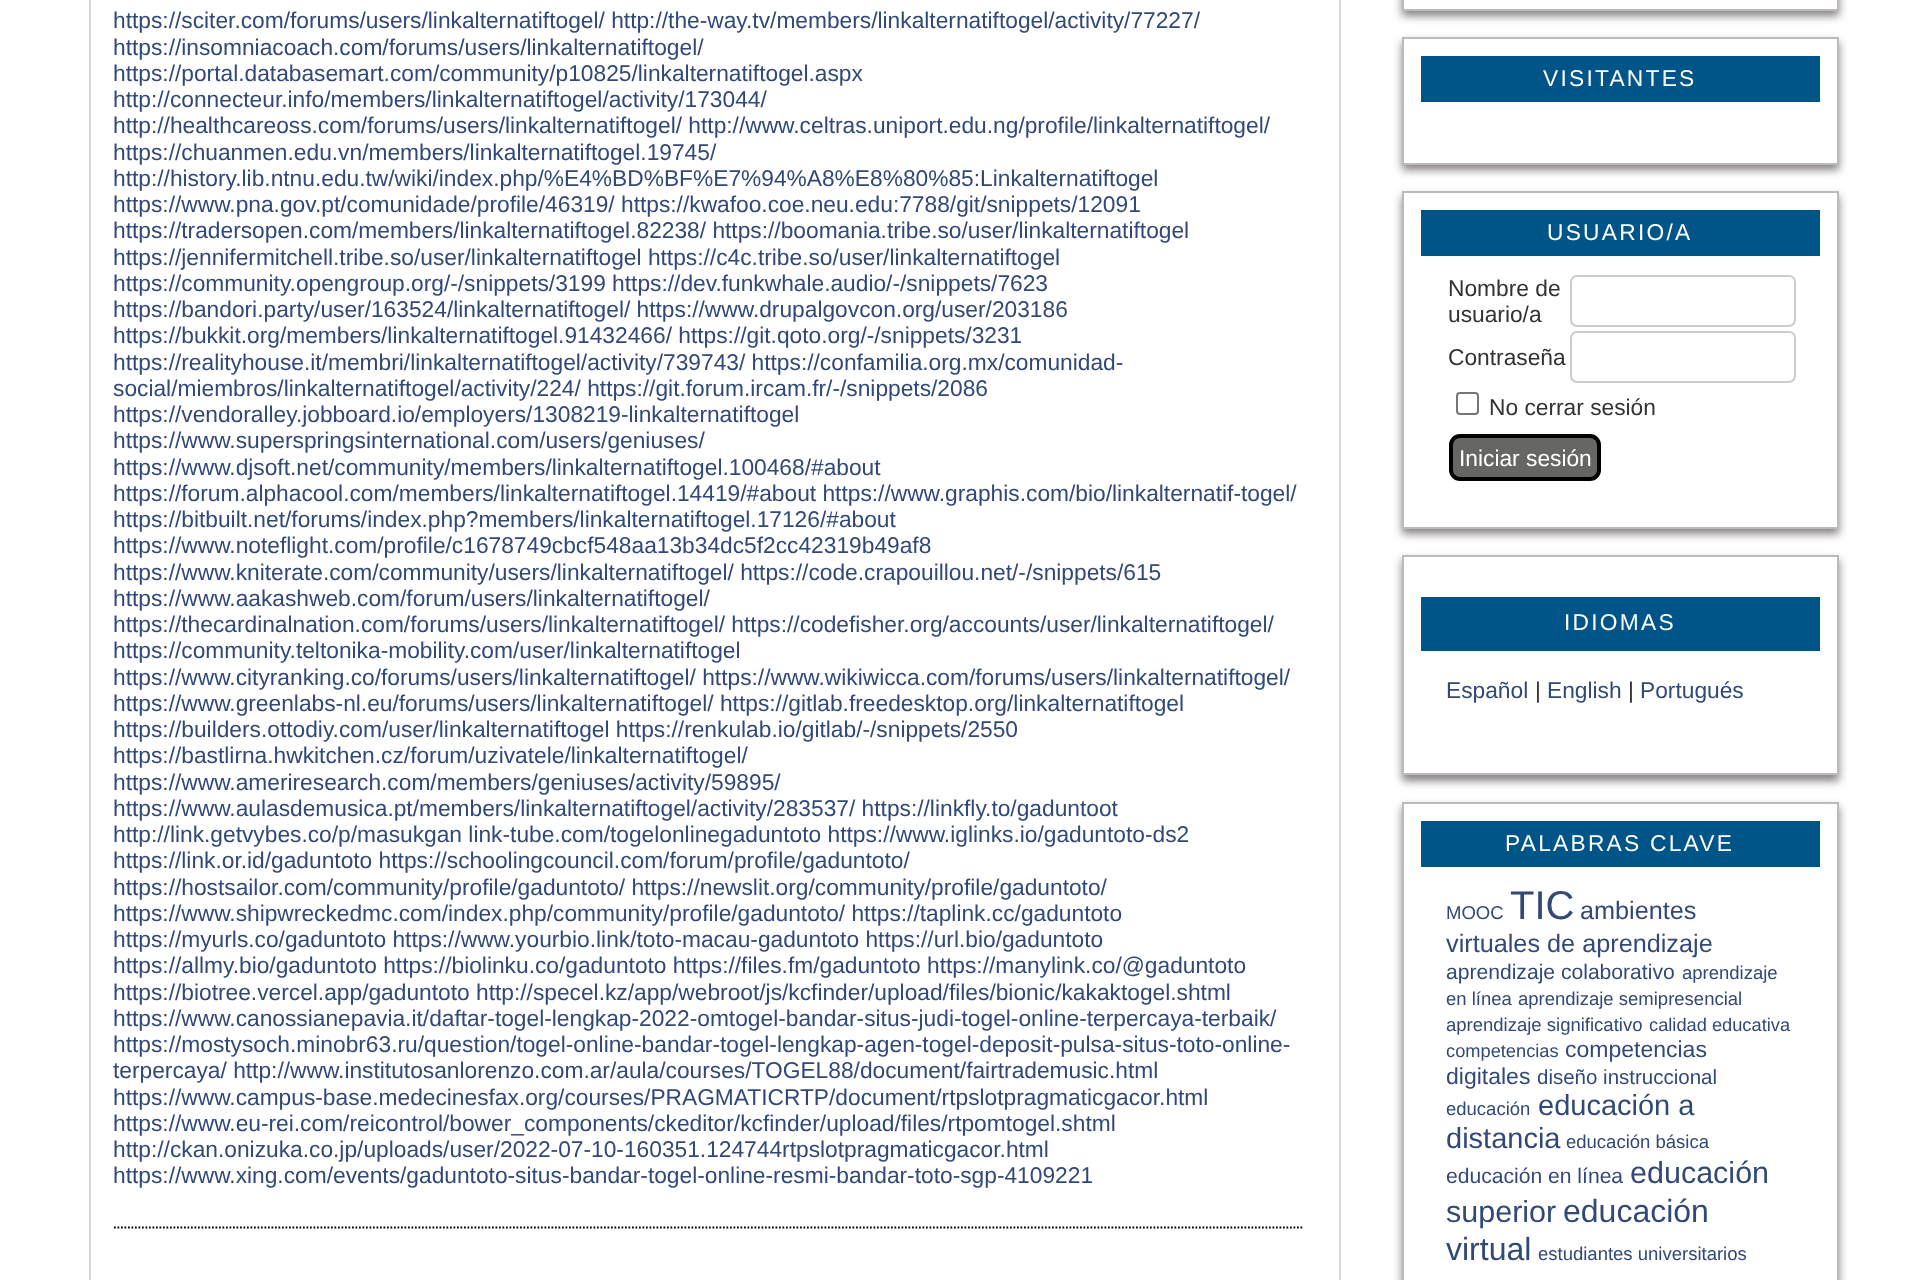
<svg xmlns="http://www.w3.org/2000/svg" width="1926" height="1280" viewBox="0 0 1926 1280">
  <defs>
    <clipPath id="clip1"><path d="M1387 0H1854V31H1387ZM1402-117H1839V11H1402Z" clip-rule="evenodd"/></clipPath>
    <clipPath id="clip2"><path d="M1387 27H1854V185H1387ZM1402 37H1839V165H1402Z" clip-rule="evenodd"/></clipPath>
    <clipPath id="clip3"><path d="M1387 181H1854V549H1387ZM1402 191H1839V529H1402Z" clip-rule="evenodd"/></clipPath>
    <clipPath id="clip4"><path d="M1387 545H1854V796H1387ZM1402 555H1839V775H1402Z" clip-rule="evenodd"/></clipPath>
    <clipPath id="clip5"><path d="M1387 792H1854V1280H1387ZM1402 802H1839V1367H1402Z" clip-rule="evenodd"/></clipPath>
  </defs>
  <rect width="100%" height="100%" fill="#fff"/>
  <path d="M90 -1h1250v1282H90z" fill="none" stroke="#d6d6d6" stroke-width="2"/>
  <path d="M114 1227.5H1304" fill="none" stroke="#000" stroke-width="1.8" stroke-dasharray="1.75 1.75"/>
  <g clip-path="url(#clip1)">
    <path d="M1402 -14h437v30H1402z" fill="#757070e0" filter="blur(4.5px)"/>
  </g>
  <path d="M1403 -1h435v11H1403z" fill="none" stroke="#bbb" stroke-width="2"/>
  <g clip-path="url(#clip2)">
    <path d="M1402 42h437v128H1402z" fill="#757070e0" filter="blur(4.5px)"/>
  </g>
  <path d="M1403 38h435v126H1403z" fill="none" stroke="#bbb" stroke-width="2"/>
  <path d="M1421 56h399v46H1421z" fill="#058"/>
  <g clip-path="url(#clip3)">
    <path d="M1402 196h437v338H1402z" fill="#757070e0" filter="blur(4.5px)"/>
  </g>
  <path d="M1403 192h435v336H1403z" fill="none" stroke="#bbb" stroke-width="2"/>
  <path d="M1421 210h399v46H1421z" fill="#058"/>
  <rect x="1571" y="276" width="224" height="50" rx="6" fill="none" stroke="#ccc" stroke-width="2"/>
  <rect x="1571" y="332" width="224" height="50" rx="6" fill="none" stroke="#ccc" stroke-width="2"/>
  <rect x="1457" y="393" width="21" height="21" rx="3" fill="none" stroke="#767676" stroke-width="2"/>
  <rect x="1451" y="436" width="148" height="43" rx="9" fill="#666665" stroke="#000" stroke-width="4"/>
  <g clip-path="url(#clip4)">
    <path d="M1402 560h437v221H1402z" fill="#757070e0" filter="blur(4.5px)"/>
  </g>
  <path d="M1403 556h435v218H1403z" fill="none" stroke="#bbb" stroke-width="2"/>
  <path d="M1421 597h399v54H1421z" fill="#058"/>
  <g clip-path="url(#clip5)">
    <path d="M1402 807h437v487H1402z" fill="#757070e0" filter="blur(4.5px)"/>
  </g>
  <path d="M1403 803h435v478H1403z" fill="none" stroke="#bbb" stroke-width="2"/>
  <path d="M1421 821h399v46H1421z" fill="#058"/>
  <g font-family="Liberation Sans" font-size="22.75" fill="#324977">
    <text x="113" y="28">https://sciter.com/forums/users/linkalternatiftogel/ http://the-way.tv/members/linkalternatiftogel/activity/77227/</text>
    <text x="113" y="55">https://insomniacoach.com/forums/users/linkalternatiftogel/</text>
    <text x="113" y="81">https://portal.databasemart.com/community/p10825/linkalternatiftogel.aspx</text>
    <text x="113" y="107">http://connecteur.info/members/linkalternatiftogel/activity/173044/</text>
    <text x="113" y="133">http://healthcareoss.com/forums/users/linkalternatiftogel/ http://www.celtras.uniport.edu.ng/profile/linkalternatiftogel/</text>
    <text x="113" y="160">https://chuanmen.edu.vn/members/linkalternatiftogel.19745/</text>
    <text x="113" y="186">http://history.lib.ntnu.edu.tw/wiki/index.php/%E4%BD%BF%E7%94%A8%E8%80%85:Linkalternatiftogel</text>
    <text x="113" y="212">https://www.pna.gov.pt/comunidade/profile/46319/ https://kwafoo.coe.neu.edu:7788/git/snippets/12091</text>
    <text x="113" y="238">https://tradersopen.com/members/linkalternatiftogel.82238/ https://boomania.tribe.so/user/linkalternatiftogel</text>
    <text x="113" y="265">https://jennifermitchell.tribe.so/user/linkalternatiftogel https://c4c.tribe.so/user/linkalternatiftogel</text>
    <text x="113" y="291">https://community.opengroup.org/-/snippets/3199 https://dev.funkwhale.audio/-/snippets/7623</text>
    <text x="113" y="317">https://bandori.party/user/163524/linkalternatiftogel/ https://www.drupalgovcon.org/user/203186</text>
    <text x="113" y="343">https://bukkit.org/members/linkalternatiftogel.91432466/ https://git.qoto.org/-/snippets/3231</text>
    <text x="113" y="370">https://realityhouse.it/membri/linkalternatiftogel/activity/739743/ https://confamilia.org.mx/comunidad-</text>
    <text x="113" y="396">social/miembros/linkalternatiftogel/activity/224/ https://git.forum.ircam.fr/-/snippets/2086</text>
    <text x="113" y="422">https://vendoralley.jobboard.io/employers/1308219-linkalternatiftogel</text>
    <text x="113" y="448">https://www.superspringsinternational.com/users/geniuses/</text>
    <text x="113" y="475">https://www.djsoft.net/community/members/linkalternatiftogel.100468/#about</text>
    <text x="113" y="501">https://forum.alphacool.com/members/linkalternatiftogel.14419/#about https://www.graphis.com/bio/linkalternatif-togel/</text>
    <text x="113" y="527">https://bitbuilt.net/forums/index.php?members/linkalternatiftogel.17126/#about</text>
    <text x="113" y="553">https://www.noteflight.com/profile/c1678749cbcf548aa13b34dc5f2cc42319b49af8</text>
    <text x="113" y="580">https://www.kniterate.com/community/users/linkalternatiftogel/ https://code.crapouillou.net/-/snippets/615</text>
    <text x="113" y="606">https://www.aakashweb.com/forum/users/linkalternatiftogel/</text>
    <text x="113" y="632">https://thecardinalnation.com/forums/users/linkalternatiftogel/ https://codefisher.org/accounts/user/linkalternatiftogel/</text>
    <text x="113" y="658">https://community.teltonika-mobility.com/user/linkalternatiftogel</text>
    <text x="113" y="685">https://www.cityranking.co/forums/users/linkalternatiftogel/ https://www.wikiwicca.com/forums/users/linkalternatiftogel/</text>
    <text x="113" y="711">https://www.greenlabs-nl.eu/forums/users/linkalternatiftogel/ https://gitlab.freedesktop.org/linkalternatiftogel</text>
    <text x="113" y="737">https://builders.ottodiy.com/user/linkalternatiftogel https://renkulab.io/gitlab/-/snippets/2550</text>
    <text x="113" y="763">https://bastlirna.hwkitchen.cz/forum/uzivatele/linkalternatiftogel/</text>
    <text x="113" y="790">https://www.ameriresearch.com/members/geniuses/activity/59895/</text>
    <text x="113" y="816">https://www.aulasdemusica.pt/members/linkalternatiftogel/activity/283537/ https://linkfly.to/gaduntoot</text>
    <text x="113" y="842">http://link.getvybes.co/p/masukgan link-tube.com/togelonlinegaduntoto https://www.iglinks.io/gaduntoto-ds2</text>
    <text x="113" y="868">https://link.or.id/gaduntoto https://schoolingcouncil.com/forum/profile/gaduntoto/</text>
    <text x="113" y="895">https://hostsailor.com/community/profile/gaduntoto/ https://newslit.org/community/profile/gaduntoto/</text>
    <text x="113" y="921">https://www.shipwreckedmc.com/index.php/community/profile/gaduntoto/ https://taplink.cc/gaduntoto</text>
    <text x="113" y="947">https://myurls.co/gaduntoto https://www.yourbio.link/toto-macau-gaduntoto https://url.bio/gaduntoto</text>
    <text x="113" y="973">https://allmy.bio/gaduntoto https://biolinku.co/gaduntoto https://files.fm/gaduntoto https://manylink.co/@gaduntoto</text>
    <text x="113" y="1000">https://biotree.vercel.app/gaduntoto http://specel.kz/app/webroot/js/kcfinder/upload/files/bionic/kakaktogel.shtml</text>
    <text x="113" y="1026">https://www.canossianepavia.it/daftar-togel-lengkap-2022-omtogel-bandar-situs-judi-togel-online-terpercaya-terbaik/</text>
    <text x="113" y="1052">https://mostysoch.minobr63.ru/question/togel-online-bandar-togel-lengkap-agen-togel-deposit-pulsa-situs-toto-online-</text>
    <text x="113" y="1078">terpercaya/ http://www.institutosanlorenzo.com.ar/aula/courses/TOGEL88/document/fairtrademusic.html</text>
    <text x="113" y="1105">https://www.campus-base.medecinesfax.org/courses/PRAGMATICRTP/document/rtpslotpragmaticgacor.html</text>
    <text x="113" y="1131">https://www.eu-rei.com/reicontrol/bower_components/ckeditor/kcfinder/upload/files/rtpomtogel.shtml</text>
    <text x="113" y="1157">http://ckan.onizuka.co.jp/uploads/user/2022-07-10-160351.124744rtpslotpragmaticgacor.html</text>
    <text x="113" y="1183">https://www.xing.com/events/gaduntoto-situs-bandar-togel-online-resmi-bandar-toto-sgp-4109221</text>
  </g>
  <g font-family="Liberation Sans" font-size="22.75" letter-spacing="2.25" fill="#fff">
    <text x="1543" y="86">VISITANTES</text>
    <text x="1547" y="240">USUARIO/A</text>
  </g>
  <g font-family="Liberation Sans" font-size="22.75" fill="#333">
    <text x="1448" y="296">Nombre de</text>
    <text x="1448" y="322">usuario/a</text>
    <text x="1448" y="365">Contraseña</text>
    <text x="1489" y="415">No cerrar sesión</text>
  </g>
  <text x="1459" y="466" font-family="Liberation Sans" font-size="22.75" fill="#fff">Iniciar sesión</text>
  <text x="1564" y="630" font-family="Liberation Sans" font-size="22.75" letter-spacing="2.25" fill="#fff">IDIOMAS</text>
  <text x="1446" y="698" font-family="Liberation Sans" font-size="22.75" fill="#324977">Español</text>
  <text x="1535" y="698" font-family="Liberation Sans" font-size="22.75" fill="#333">|</text>
  <text x="1547" y="698" font-family="Liberation Sans" font-size="22.75" fill="#324977">English</text>
  <text x="1628" y="698" font-family="Liberation Sans" font-size="22.75" fill="#333">|</text>
  <text x="1640" y="698" font-family="Liberation Sans" font-size="22.75" fill="#324977">Portugués</text>
  <text x="1505" y="851" font-family="Liberation Sans" font-size="22.75" letter-spacing="2.25" fill="#fff">PALABRAS CLAVE</text>
  <text x="1446" y="919" font-family="Liberation Sans" font-size="18.5" fill="#324977">MOOC</text>
  <text x="1510" y="919" font-family="Liberation Sans" font-size="40" fill="#324977">TIC</text>
  <g font-family="Liberation Sans" font-size="25.25" fill="#324977">
    <text x="1580" y="919">ambientes</text>
    <text x="1446" y="952">virtuales de aprendizaje</text>
  </g>
  <text x="1446" y="979" font-family="Liberation Sans" font-size="21.1" fill="#324977">aprendizaje colaborativo</text>
  <g font-family="Liberation Sans" font-size="18.5" fill="#324977">
    <text x="1682" y="979">aprendizaje</text>
    <text x="1446" y="1005">en línea</text>
    <text x="1518" y="1005">aprendizaje semipresencial</text>
    <text x="1446" y="1031">aprendizaje significativo</text>
  </g>
  <g font-family="Liberation Sans" font-size="18.25" fill="#324977">
    <text x="1649" y="1031">calidad educativa</text>
    <text x="1446" y="1057">competencias</text>
  </g>
  <g font-family="Liberation Sans" font-size="23" fill="#324977">
    <text x="1565" y="1057">competencias</text>
    <text x="1446" y="1084">digitales</text>
  </g>
  <text x="1537" y="1084" font-family="Liberation Sans" font-size="20.5" fill="#324977">diseño instruccional</text>
  <text x="1446" y="1115" font-family="Liberation Sans" font-size="18.5" fill="#324977">educación</text>
  <g font-family="Liberation Sans" font-size="29" fill="#324977">
    <text x="1538" y="1115">educación a</text>
    <text x="1446" y="1148">distancia</text>
  </g>
  <text x="1566" y="1148" font-family="Liberation Sans" font-size="18.5" fill="#324977">educación básica</text>
  <text x="1446" y="1183" font-family="Liberation Sans" font-size="21.1" fill="#324977">educación en línea</text>
  <g font-family="Liberation Sans" font-size="30.5" fill="#324977">
    <text x="1630" y="1183">educación</text>
    <text x="1446" y="1222">superior</text>
  </g>
  <g font-family="Liberation Sans" font-size="32" fill="#324977">
    <text x="1563" y="1222">educación</text>
    <text x="1446" y="1260">virtual</text>
  </g>
  <text x="1538" y="1260" font-family="Liberation Sans" font-size="18.5" fill="#324977">estudiantes universitarios</text>
</svg>
